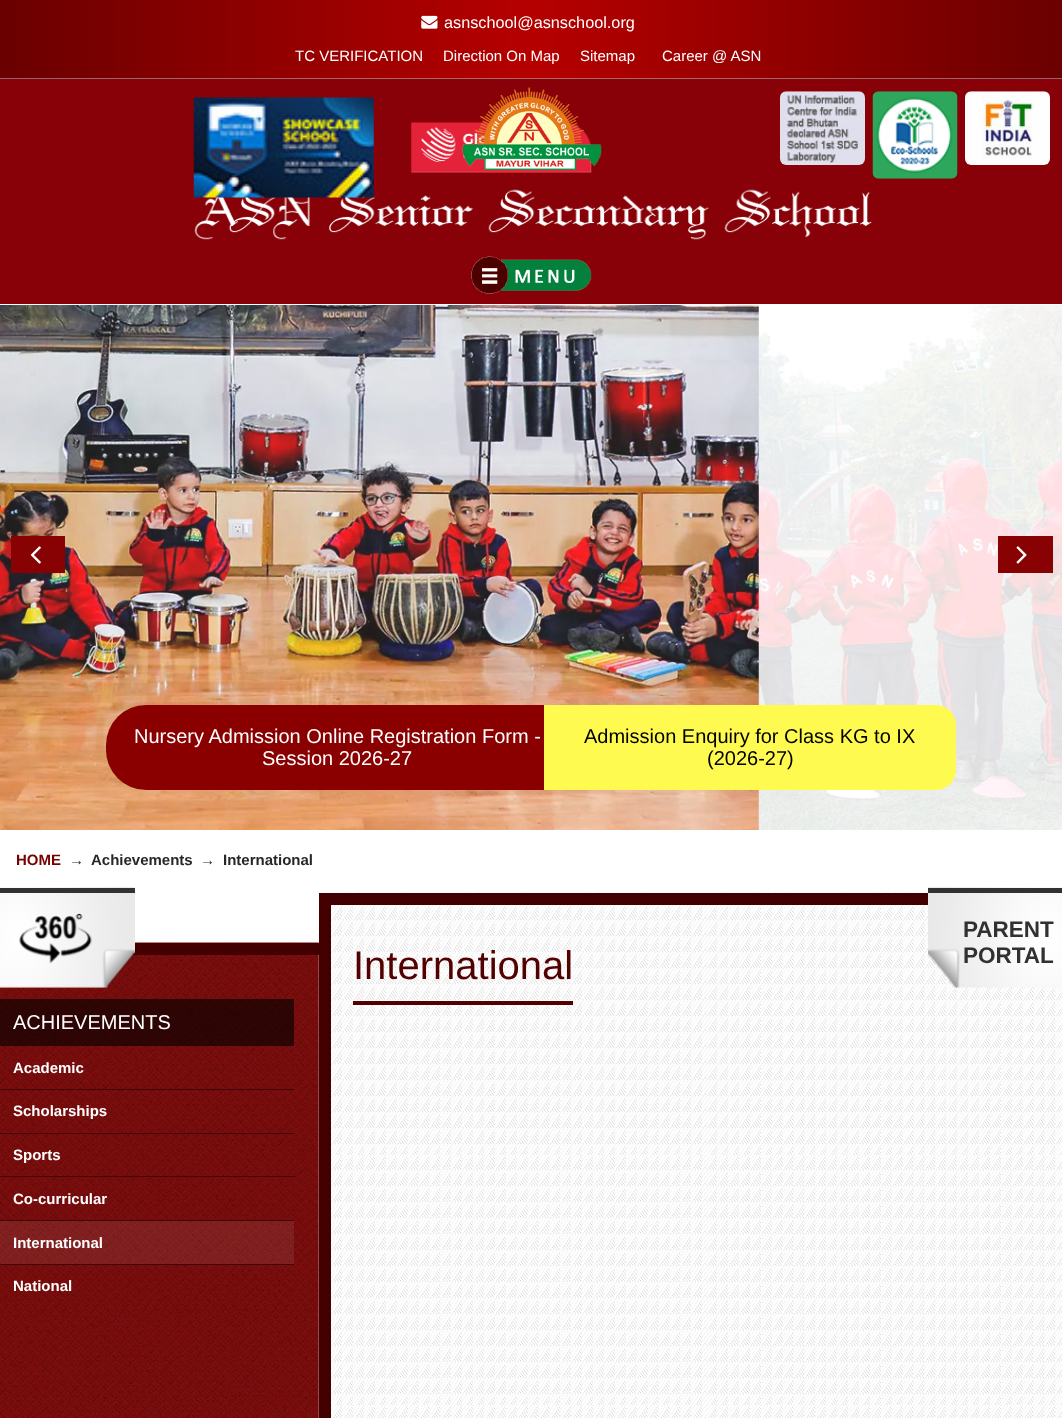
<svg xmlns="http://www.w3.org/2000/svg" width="1062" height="1418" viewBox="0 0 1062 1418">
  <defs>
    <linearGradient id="g1" gradientUnits="userSpaceOnUse" x1="0" y1="39" x2="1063" y2="39"><stop offset="0" stop-color="#6a0000"/><stop offset="0.5" stop-color="#b60000"/><stop offset="1" stop-color="#6a0000"/></linearGradient>
    <linearGradient id="g2" gradientUnits="userSpaceOnUse" x1="0" y1="39" x2="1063" y2="39"><stop offset="0" stop-color="#946868"/><stop offset="0.5" stop-color="#b36868"/><stop offset="1" stop-color="#946868"/></linearGradient>
  </defs>
  <rect width="100%" height="100%" fill="#fff"/>
  <path d="M0 0h1062v78H0z" fill="url(#g1)"/>
  <path d="M0 78h1062v1H0z" fill="url(#g2)"/>
  <image x="421" y="15" width="17" height="14" href="img/1.png"/>
  <path d="M0 79h1062v225H0z" fill="#880008"/>
  <image x="411" y="122" width="181" height="51" href="img/6.png"/>
  <image x="462" y="87" width="140" height="83" href="img/2.png"/>
  <image x="194" y="189" width="678" height="51" href="img/3.png"/>
  <image x="471" y="256" width="121" height="38" href="img/4.png"/>
  <image x="193" y="97" width="181" height="101" href="img/5.png"/>
  <image x="780" y="91" width="85" height="74" href="img/7.png"/>
  <image x="872" y="91" width="86" height="88" href="img/8.png"/>
  <image x="965" y="91" width="85" height="74" href="img/9.png"/>
  <image x="0" y="305" width="1062" height="525" href="img/10.png"/>
  <image x="0" y="305" width="759" height="525" href="img/11.png"/>
  <path d="M11 536h54v37H11z" fill="#880204"/>
  <image x="30" y="546" width="11" height="18" href="img/12.png"/>
  <path d="M998 536h55v37H998z" fill="#880204"/>
  <image x="1016" y="546" width="11" height="18" href="img/13.png"/>
  <rect x="106" y="705" width="850" height="85" rx="40" fill="#8a0000"/>
  <path d="M544 705H936C947 705 956 714 956 725V770C956 781 947 790 936 790H544Z" fill="#fffa50"/>
  <image x="318" y="892" width="744" height="526" href="img/14.png"/>
  <path d="M331 893h597v12H331z" fill="#430001"/>
  <path d="M319 893h12v525H319z" fill="#430001"/>
  <path d="M353 1001h220v4H353z" fill="#530001"/>
  <image x="0" y="942" width="319" height="476" href="img/15.png"/>
  <path d="M131 943h188v12H131z" fill="#430001"/>
  <path d="M0 999h294v47H0z" fill="#0000009c"/>
  <path d="M0 1089h294v1H0z" fill="#00000070"/>
  <path d="M0 1133h294v1H0z" fill="#00000070"/>
  <path d="M0 1176h294v1H0z" fill="#00000070"/>
  <path d="M0 1220h294v1H0z" fill="#00000070"/>
  <path d="M0 1264h294v1H0z" fill="#00000070"/>
  <path d="M0 1221h294v43H0z" fill="#ffffff14"/>
  <image x="0" y="887" width="135" height="101" href="img/16.png"/>
  <path d="M0 888h135v5H0z" fill="#323232"/>
  <image x="19" y="913" width="74" height="51" href="img/17.png"/>
  <image x="928" y="887" width="134" height="101" href="img/18.png"/>
  <path d="M928 888h134v5H928z" fill="#323232"/>
  <text x="444" y="28" font-family="Liberation Sans" font-size="16.25" fill="#fff">asnschool@asnschool.org</text>
  <g font-family="Liberation Sans" font-size="15" fill="#fff">
    <text x="295" y="61">TC VERIFICATION</text>
    <text x="443" y="61">Direction On Map</text>
    <text x="580" y="61">Sitemap</text>
    <text x="662" y="61">Career @ ASN</text>
  </g>
  <g font-family="Liberation Sans" font-size="20" fill="#fff">
    <text x="134" y="743">Nursery Admission Online Registration Form -</text>
    <text x="262" y="765">Session 2026-27</text>
  </g>
  <g font-family="Liberation Sans" font-size="20" fill="#000">
    <text x="584" y="743">Admission Enquiry for Class KG to IX</text>
    <text x="707" y="765">(2026-27)</text>
  </g>
  <text x="16" y="865" font-family="Liberation Sans" font-size="15" font-weight="bold" fill="#770001">HOME</text>
  <g font-family="Liberation Sans" font-size="15" font-weight="bold" fill="#272727">
    <text x="69" y="865">→</text>
    <text x="91" y="865">Achievements</text>
    <text x="200" y="865">→</text>
    <text x="223" y="865">International</text>
  </g>
  <text x="353" y="979" font-family="Liberation Sans" font-size="40" fill="#530001">International</text>
  <text x="13" y="1029" font-family="Liberation Sans" font-size="20" fill="#fff">ACHIEVEMENTS</text>
  <g font-family="Liberation Sans" font-size="15" font-weight="bold" fill="#fff">
    <text x="13" y="1073">Academic</text>
    <text x="13" y="1116">Scholarships</text>
    <text x="13" y="1160">Sports</text>
    <text x="13" y="1204">Co-curricular</text>
    <text x="13" y="1248">International</text>
    <text x="13" y="1291">National</text>
  </g>
  <g font-family="Liberation Sans" font-size="22.5" font-weight="bold" fill="#313131">
    <text x="963" y="937">PARENT</text>
    <text x="963" y="963">PORTAL</text>
  </g>
</svg>
